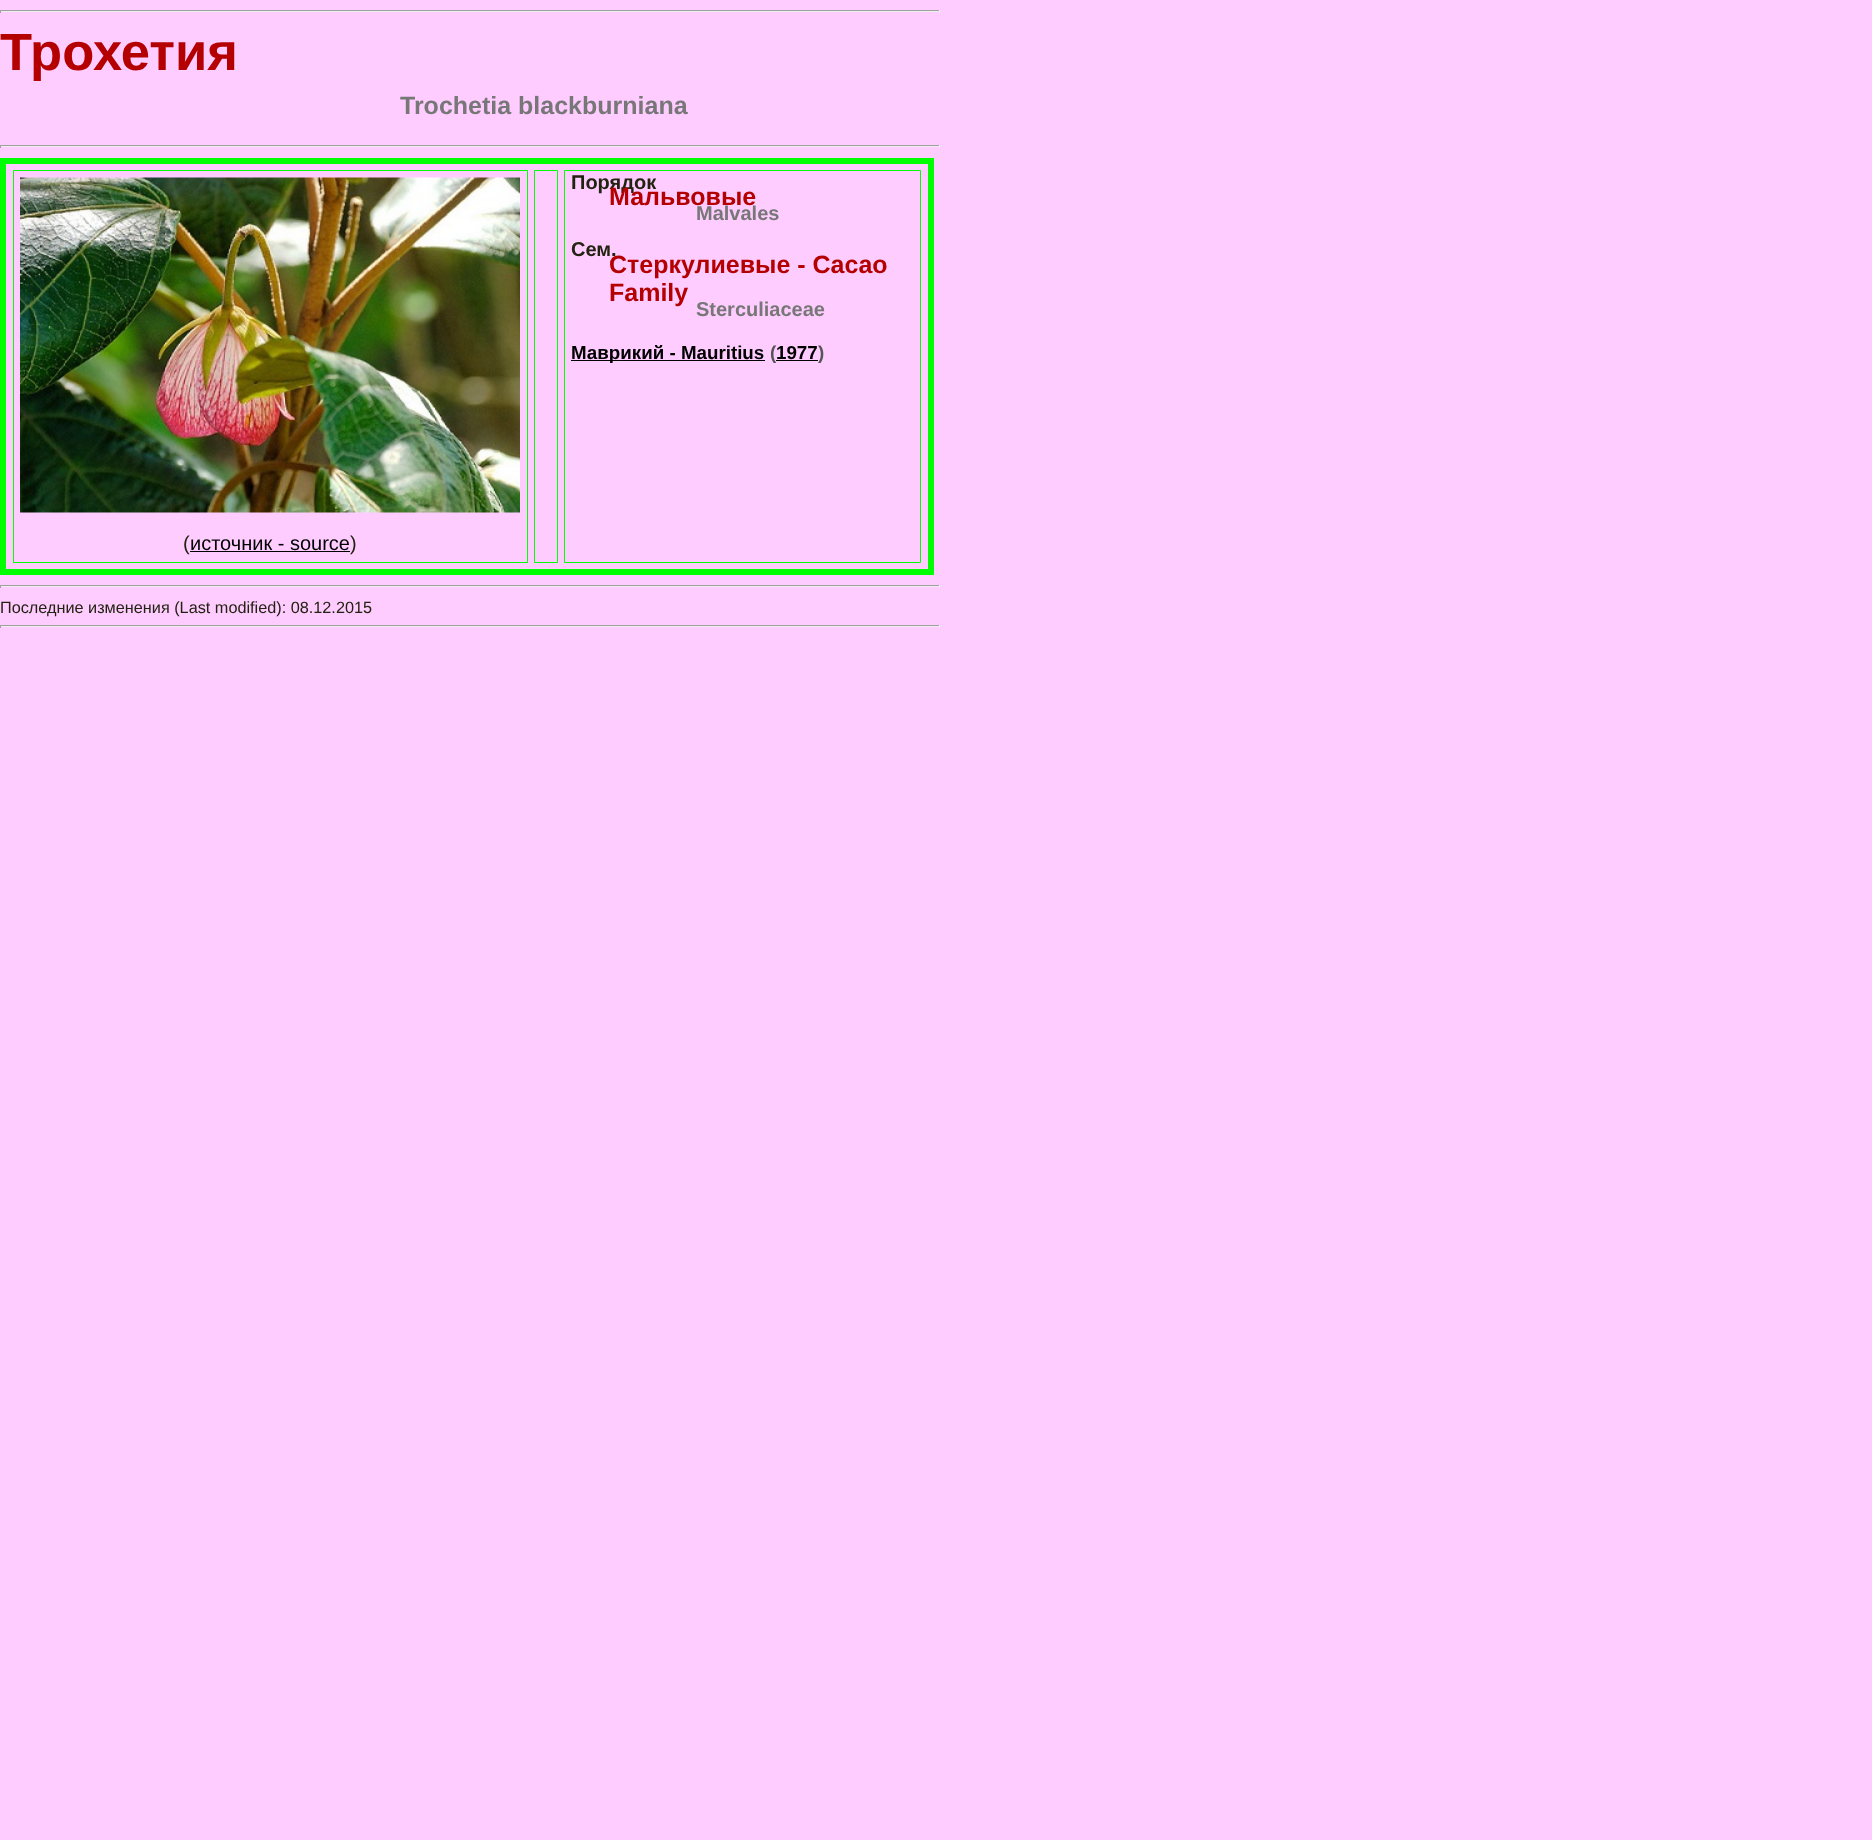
<svg xmlns="http://www.w3.org/2000/svg" width="1872" height="1840" viewBox="0 0 1872 1840">
  <rect width="100%" height="100%" fill="#fcf"/>
  <path d="M0 10h940v1H0z" fill="#9f9f9f"/>
  <path d="M939 10h1v3H939z" fill="#eee"/>
  <path d="M0 11h940v1H0z" fill="#eee"/>
  <path d="M0 10h1v3H0z" fill="#9f9f9f"/>
  <path d="M0 145h940v1H0z" fill="#9f9f9f"/>
  <path d="M939 145h1v3H939z" fill="#eee"/>
  <path d="M0 146h940v1H0z" fill="#eee"/>
  <path d="M0 145h1v3H0z" fill="#9f9f9f"/>
  <path d="M3 161h928v411H3z" fill="none" stroke="#0f0" stroke-width="6"/>
  <path d="M534.5 170.5h23v392H534.5z" fill="none" stroke="#0f0"/>
  <path d="M564.5 170.5h356v392H564.5z" fill="none" stroke="#0f0"/>
  <path d="M571 360h194v1H571z" fill="#000"/>
  <path d="M776 360h42v1H776z" fill="#000"/>
  <path d="M13.5 170.5h514v392H13.5z" fill="none" stroke="#0f0"/>
  <image x="20" y="177" width="500" height="336" href="img/1.png"/>
  <path d="M190 551h160v1H190z" fill="#000"/>
  <path d="M0 585h940v1H0z" fill="#9f9f9f"/>
  <path d="M939 585h1v3H939z" fill="#eee"/>
  <path d="M0 586h940v1H0z" fill="#eee"/>
  <path d="M0 585h1v3H0z" fill="#9f9f9f"/>
  <path d="M0 625h940v1H0z" fill="#9f9f9f"/>
  <path d="M939 625h1v3H939z" fill="#eee"/>
  <path d="M0 626h940v1H0z" fill="#eee"/>
  <path d="M0 625h1v3H0z" fill="#9f9f9f"/>
  <text x="0" y="70" font-family="Liberation Sans" font-size="52.5" font-weight="bold" fill="#b40000">Трохетия</text>
  <text x="400" y="114" font-family="Liberation Sans" font-size="25" font-weight="bold" fill="#777">Trochetia blackburniana</text>
  <text x="571" y="189" font-family="Liberation Sans" font-size="20" font-weight="bold" fill="#221">Порядок</text>
  <text x="609" y="205" font-family="Liberation Sans" font-size="25" font-weight="bold" fill="#b40000">Мальвовые</text>
  <text x="696" y="220" font-family="Liberation Sans" font-size="20" font-weight="bold" fill="#777">Malvales</text>
  <text x="571" y="256" font-family="Liberation Sans" font-size="20" font-weight="bold" fill="#221">Сем.</text>
  <g font-family="Liberation Sans" font-size="25" font-weight="bold" fill="#b40000">
    <text x="609" y="273">Стеркулиевые - Cacao</text>
    <text x="609" y="301">Family</text>
  </g>
  <text x="696" y="316" font-family="Liberation Sans" font-size="20" font-weight="bold" fill="#777">Sterculiaceae</text>
  <text x="571" y="359" font-family="Liberation Sans" font-size="18.75" font-weight="bold" fill="#000">Маврикий - Mauritius</text>
  <text x="770" y="359" font-family="Liberation Sans" font-size="18.75" font-weight="bold" fill="#555">(</text>
  <text x="776" y="359" font-family="Liberation Sans" font-size="18.75" font-weight="bold" fill="#000">1977</text>
  <text x="818" y="359" font-family="Liberation Sans" font-size="18.75" font-weight="bold" fill="#555">)</text>
  <text x="183" y="550" font-family="Liberation Sans" font-size="20" fill="#221">(</text>
  <text x="190" y="550" font-family="Liberation Sans" font-size="20" fill="#000">источник - source</text>
  <text x="350" y="550" font-family="Liberation Sans" font-size="20" fill="#221">)</text>
  <text x="0" y="613" font-family="Liberation Sans" font-size="16.25" fill="#221">Последние изменения (Last modified): 08.12.2015</text>
</svg>
